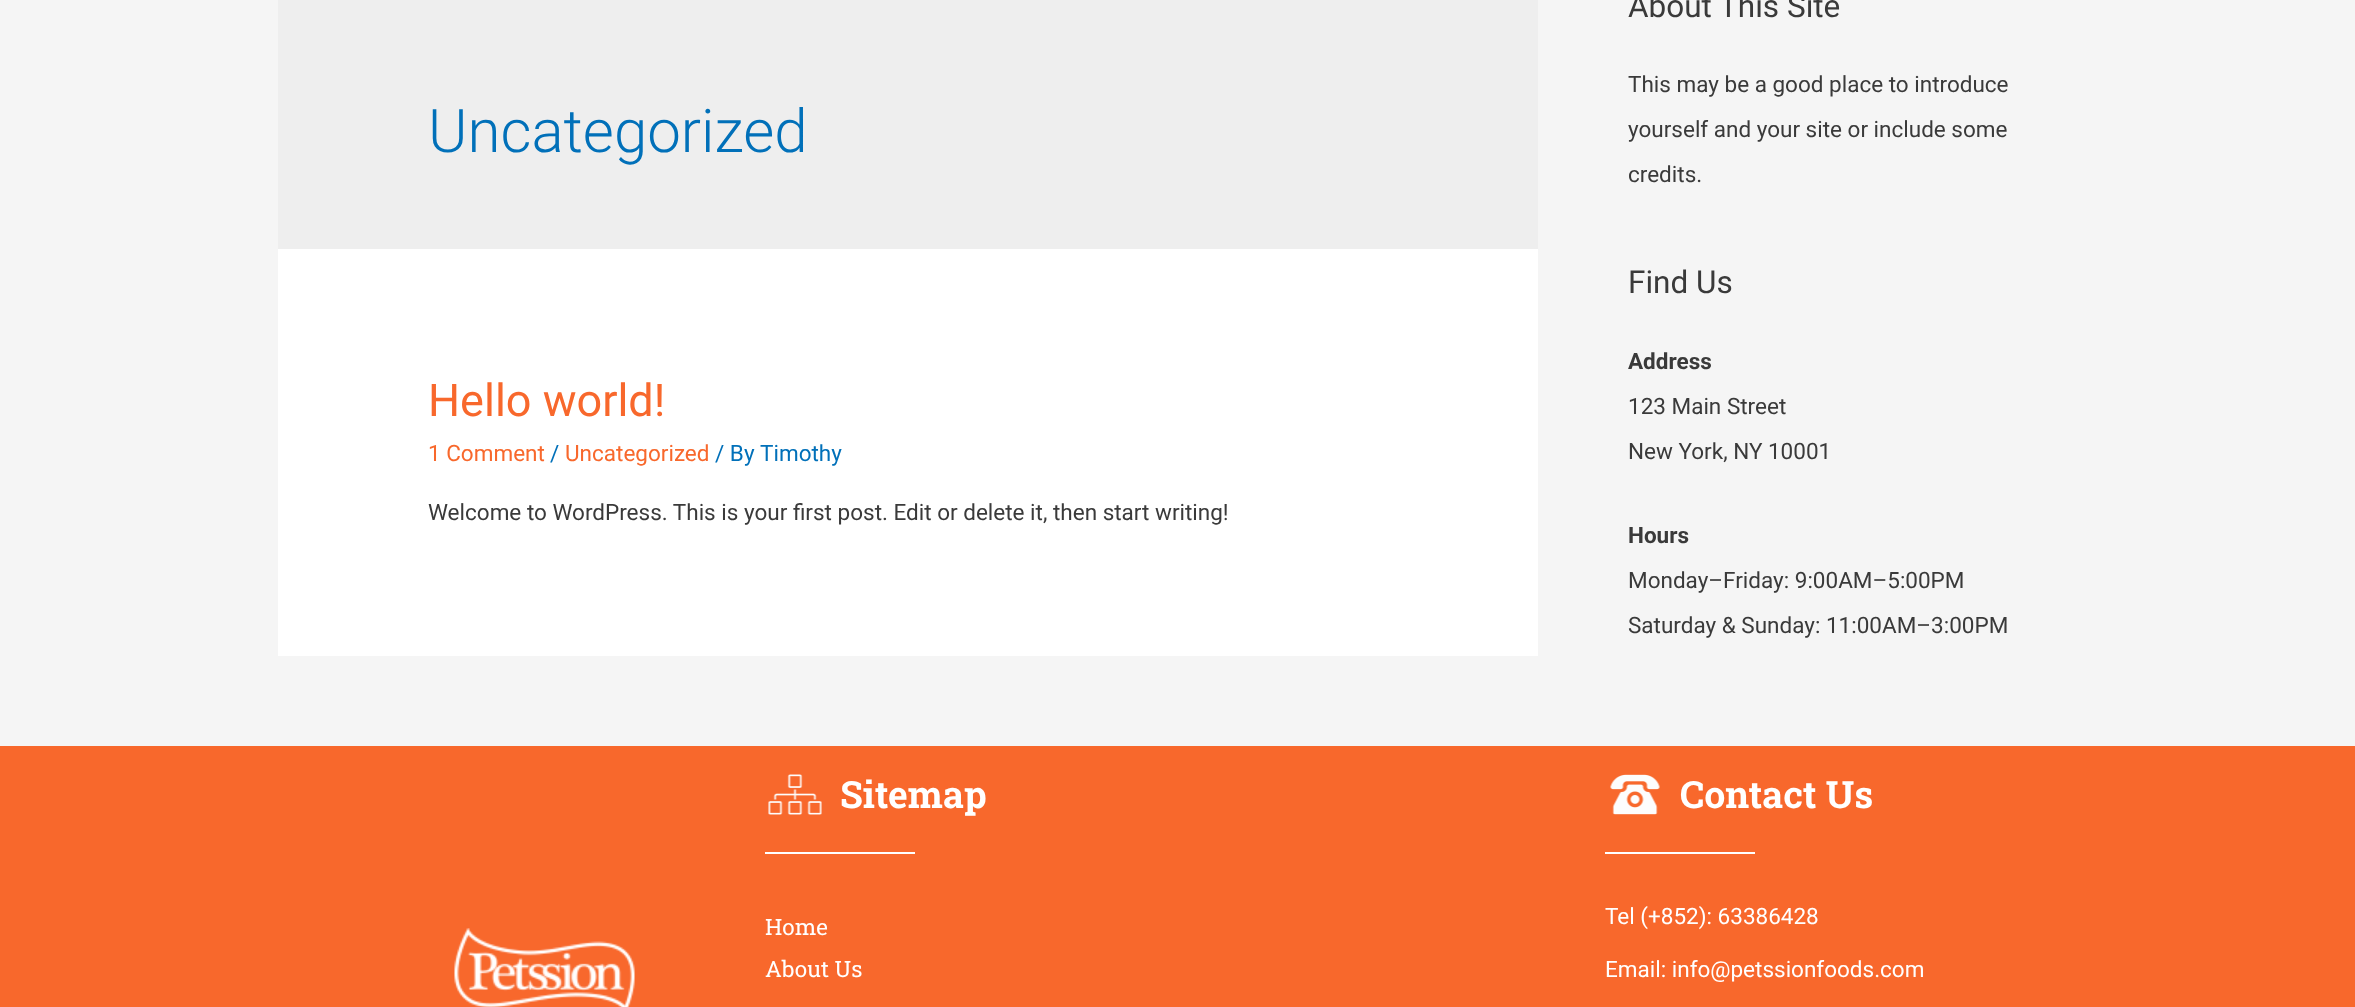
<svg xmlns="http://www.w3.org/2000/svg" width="2355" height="1007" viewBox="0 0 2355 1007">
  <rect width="100%" height="100%" fill="#f5f5f5"/>
  <path d="M278 0h1260v249H278z" fill="#eee"/>
  <path d="M278 249h1260v407H278z" fill="#fff"/>
  <path d="M0 746h2355v261H0z" fill="#f8682c"/>
  <image x="454" y="928" width="181" height="79" href="img/1.png"/>
  <image x="768" y="774" width="54" height="41" href="img/2.png"/>
  <path d="M765 852h150v2H765z" fill="#fff"/>
  <image x="1610" y="774" width="50" height="41" href="img/3.png"/>
  <path d="M1605 852h150v2H1605z" fill="#fff"/>
  <text x="428" y="152" font-family="Roboto" font-size="60" font-weight="300" fill="#0170b9">Uncategorized</text>
  <text x="428" y="416" font-family="Roboto" font-size="45" fill="#f8682c">Hello world!</text>
  <text x="428" y="461" font-family="Roboto" font-size="22.5" fill="#f8682c">1 Comment</text>
  <text x="550" y="461" font-family="Roboto" font-size="22.5" fill="#0170b9">/</text>
  <text x="565" y="461" font-family="Roboto" font-size="22.5" fill="#f8682c">Uncategorized</text>
  <g font-family="Roboto" font-size="22.5" fill="#0170b9">
    <text x="715" y="461">/ By</text>
    <text x="760" y="461">Timothy</text>
  </g>
  <text x="428" y="520" font-family="Roboto" font-size="22.5" fill="#3a3a3a">Welcome to WordPress. This is your first post. Edit or delete it, then start writing!</text>
  <text x="1628" y="17" font-family="Roboto" font-size="31.5" fill="#3a3a3a">About This Site</text>
  <g font-family="Roboto" font-size="22.5" fill="#3a3a3a">
    <text x="1628" y="92">This may be a good place to introduce</text>
    <text x="1628" y="137">yourself and your site or include some</text>
    <text x="1628" y="182">credits.</text>
  </g>
  <text x="1628" y="293" font-family="Roboto" font-size="31.5" fill="#3a3a3a">Find Us</text>
  <text x="1628" y="369" font-family="Roboto" font-size="22.5" font-weight="bold" fill="#3a3a3a">Address</text>
  <g font-family="Roboto" font-size="22.5" fill="#3a3a3a">
    <text x="1628" y="414">123 Main Street</text>
    <text x="1628" y="459">New York, NY 10001</text>
  </g>
  <text x="1628" y="543" font-family="Roboto" font-size="22.5" font-weight="bold" fill="#3a3a3a">Hours</text>
  <g font-family="Roboto" font-size="22.5" fill="#3a3a3a">
    <text x="1628" y="588">Monday–Friday: 9:00AM–5:00PM</text>
    <text x="1628" y="633">Saturday &amp; Sunday: 11:00AM–3:00PM</text>
  </g>
  <text x="840" y="808" font-family="Roboto Slab" font-size="37.5" font-weight="bold" fill="#fff">Sitemap</text>
  <g font-family="Roboto Slab" font-size="22.5" fill="#fff">
    <text x="765" y="935">Home</text>
    <text x="765" y="977">About Us</text>
  </g>
  <text x="1680" y="808" font-family="Roboto Slab" font-size="37.5" font-weight="bold" fill="#fff">Contact Us</text>
  <g font-family="Roboto" font-size="22.5" fill="#fff">
    <text x="1605" y="924">Tel (+852): 63386428</text>
    <text x="1605" y="977">Email: info@petssionfoods.com</text>
  </g>
</svg>
